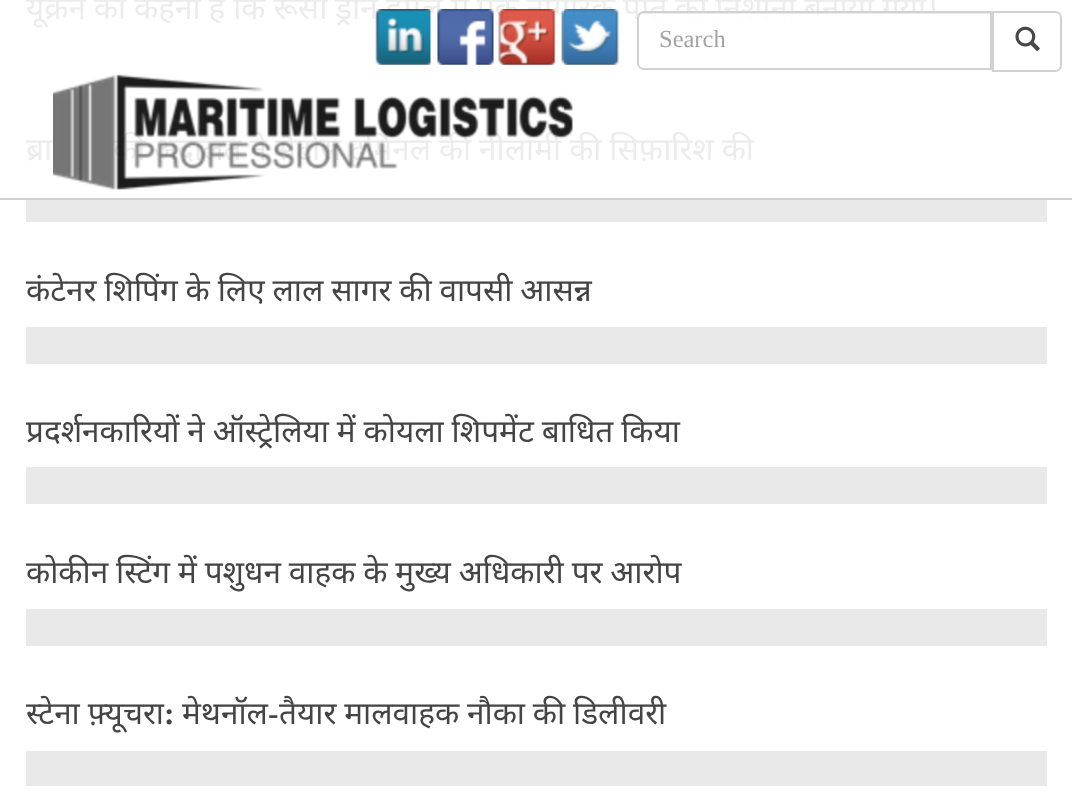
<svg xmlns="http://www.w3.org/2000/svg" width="1072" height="802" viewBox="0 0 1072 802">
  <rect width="100%" height="100%" fill="#fff"/>
  <path d="M26 200h1021v22H26z" fill="#e9e9e9"/>
  <path d="M26 327h1021v37H26z" fill="#e9e9e9"/>
  <path d="M26 467h1021v37H26z" fill="#e9e9e9"/>
  <path d="M26 609h1021v37H26z" fill="#e9e9e9"/>
  <path d="M26 751h1021v35H26z" fill="#e9e9e9"/>
  <path d="M0 198h1072v2H0z" fill="#d1d1d1"/>
  <path d="M993 12H1055C1058.5 12 1061 14.5 1061 18V65C1061 68.5 1058.5 71 1055 71H993Z" fill="none" stroke="#d1d1d1" stroke-width="2"/>
  <image x="1015" y="26" width="25" height="26" href="img/5.png"/>
  <g font-family="Noto Sans" font-size="31.5" fill="#ececec">
    <text x="26" y="19" word-spacing="-0.3">यूक्रेन का कहना है कि रूसी ड्रोन हमले में एक नागरिक पोत को निशाना बनाया गया।</text>
    <text x="26" y="160" word-spacing="-0.3">ब्रा</text>
    <text x="113" y="160" word-spacing="-0.3">की अदालत ने सैंटोस टर्मिनल की नीलामी की सिफ़ारिश की</text>
  </g>
  <g font-family="Noto Sans" font-size="31.5" fill="#444">
    <text x="26" y="301" word-spacing="-0.3">कंटेनर शिपिंग के लिए लाल सागर की वापसी आसन्न</text>
    <text x="26" y="442" word-spacing="-0.3">प्रदर्शनकारियों ने ऑस्ट्रेलिया में कोयला शिपमेंट बाधित किया</text>
    <text x="26" y="583" word-spacing="-0.3">कोकीन स्टिंग में पशुधन वाहक के मुख्य अधिकारी पर आरोप</text>
    <text x="26" y="724" word-spacing="-0.3">स्टेना फ़्यूचरा</text>
  </g>
  <text x="164" y="724" font-family="Liberation Serif" font-size="31.5" font-weight="bold" fill="#444">:</text>
  <text x="182" y="724" font-family="Noto Sans" font-size="31.5" fill="#444">मेथनॉल</text>
  <text x="268" y="724" font-family="Liberation Serif" font-size="31.5" font-weight="bold" fill="#444">-</text>
  <text x="279" y="724" word-spacing="-0.3" font-family="Noto Sans" font-size="31.5" fill="#444">तैयार मालवाहक नौका की डिलीवरी</text>
  <image x="375" y="9" width="56" height="56" href="img/1.png"/>
  <image x="437" y="9" width="57" height="56" href="img/2.png"/>
  <image x="498" y="9" width="58" height="56" href="img/3.png"/>
  <image x="561" y="9" width="58" height="56" href="img/4.png"/>
  <path d="M644 11H992V70H644C640 70 637 67 637 63V18C637 14 640 11 644 11Z" fill="#ffffffe6"/>
  <path d="M644 14H990V68H991V12H644C640 12 639 16 639 19C639 16 641 14 644 14Z" fill="#ededed"/>
  <path d="M644 12H991V69H644C640.5 69 638 66.5 638 63V18C638 14.5 640.5 12 644 12Z" fill="none" stroke="#cccccce6" stroke-width="2"/>
  <text x="659" y="47" font-family="Liberation Serif" font-size="24.5" fill="#a3a3a3">Search</text>
  <image x="53" y="74" width="520" height="116" href="img/6.png"/>
</svg>
